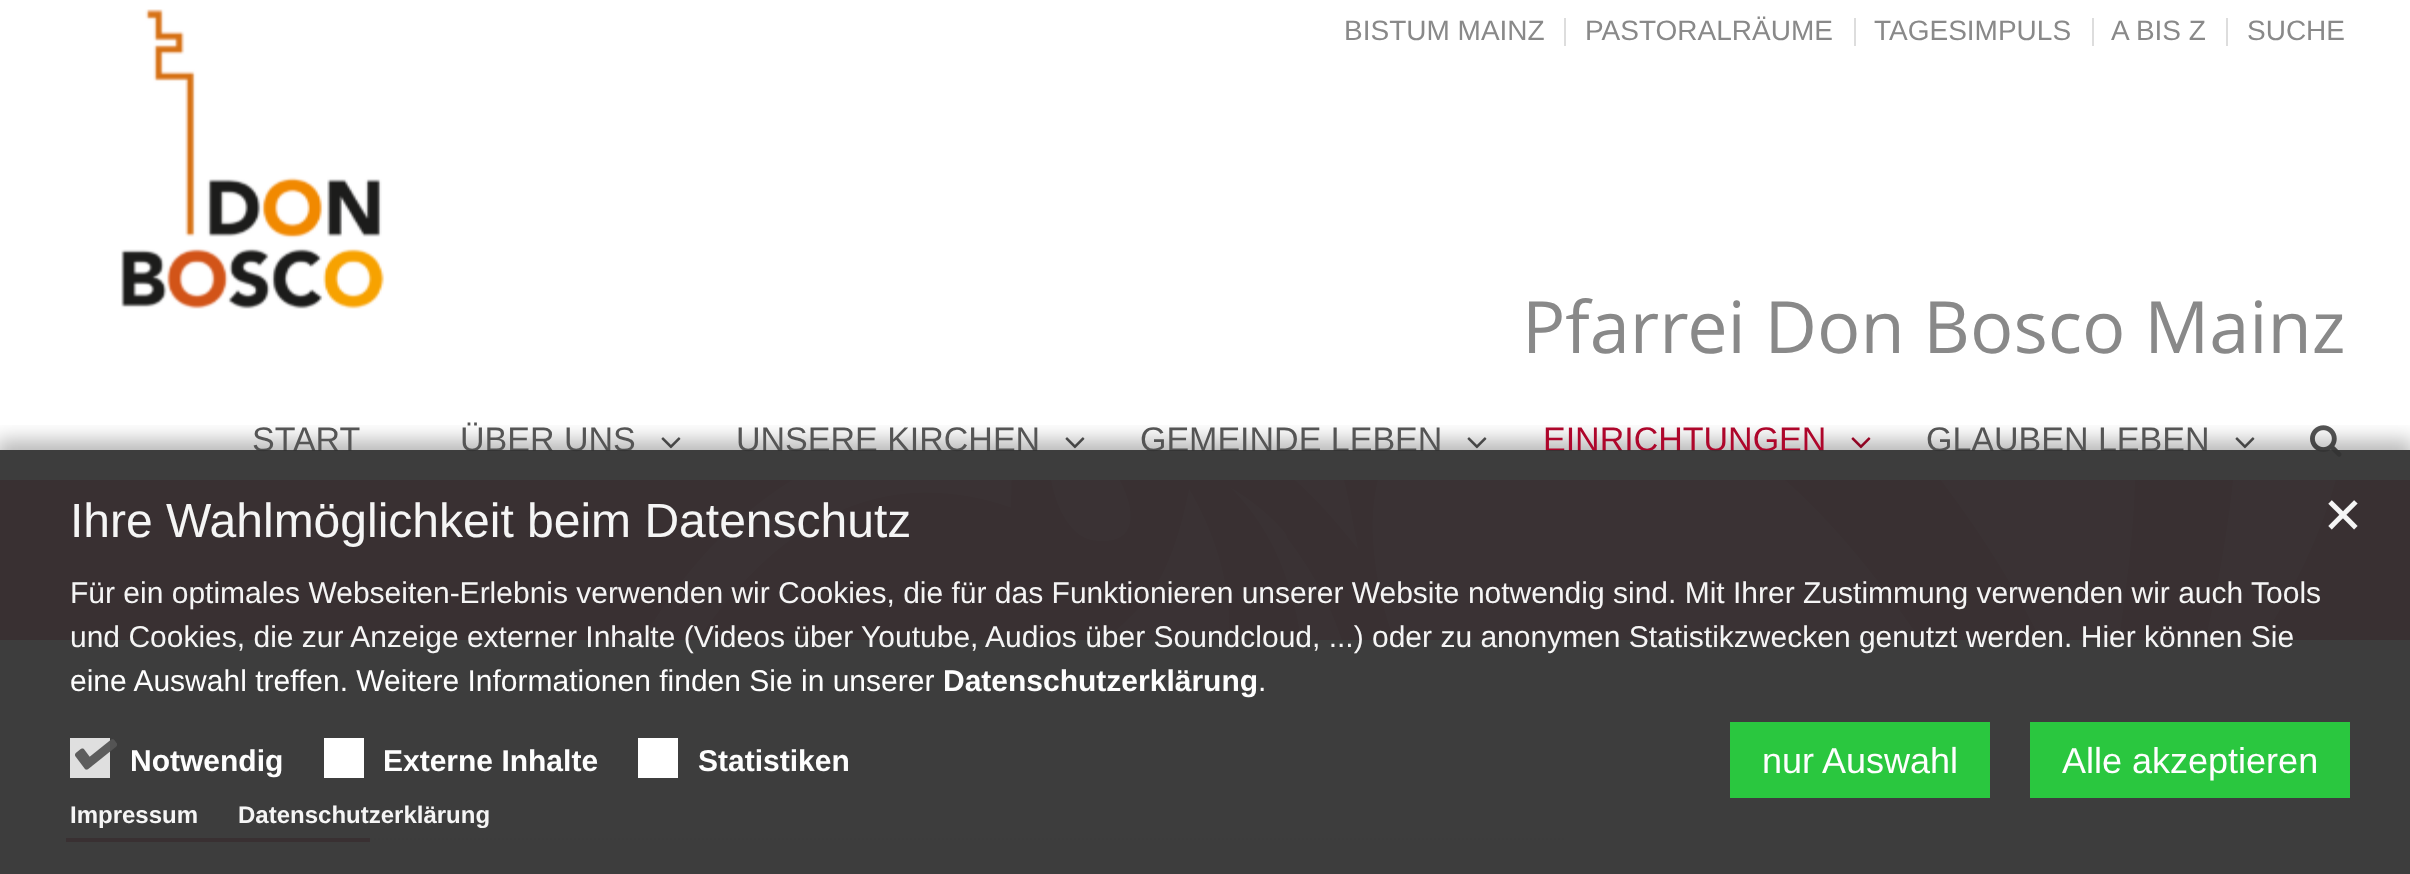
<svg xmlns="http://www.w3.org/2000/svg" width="2410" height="874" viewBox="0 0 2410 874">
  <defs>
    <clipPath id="clip1"><path d="M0 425h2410v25H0z"/></clipPath>
  </defs>
  <rect width="100%" height="100%" fill="#fff"/>
  <image x="121" y="9" width="264" height="300" href="img/1.png"/>
  <path d="M1564 18h2v28H1564z" fill="#ddd"/>
  <path d="M1854 18h2v28H1854z" fill="#ddd"/>
  <path d="M2092 18h2v28H2092z" fill="#ddd"/>
  <path d="M2226 18h2v28H2226z" fill="#ddd"/>
  <image x="661" y="437" width="20" height="12" href="img/2.png"/>
  <image x="1065" y="437" width="20" height="12" href="img/2.png"/>
  <image x="1467" y="437" width="20" height="12" href="img/2.png"/>
  <image x="1851" y="437" width="20" height="12" href="img/3.png"/>
  <image x="2235" y="437" width="20" height="12" href="img/2.png"/>
  <image x="2310" y="425" width="32" height="32" href="img/4.png"/>
  <path d="M0 480h2410v160H0z" fill="#ae062b"/>
  <image x="642" y="480" width="1694" height="160" href="img/5.png"/>
  <path d="M0 640h2410v88H0z" fill="#eee"/>
  <path d="M66 839H1566" fill="none" stroke="#ddd" stroke-width="2" stroke-dasharray="2 2"/>
  <path d="M66 838h304v4H66z" fill="#ae062b"/>
  <g clip-path="url(#clip1)">
    <path d="M-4 440h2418v432H-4z" fill="#00000047" filter="blur(10px)"/>
  </g>
  <g font-family="Liberation Sans" font-size="28" fill="#898989">
    <text x="1344" y="40">BISTUM MAINZ</text>
    <text x="1585" y="40">PASTORALRÄUME</text>
    <text x="1874" y="40">TAGESIMPULS</text>
    <text x="2111" y="40">A BIS Z</text>
    <text x="2247" y="40">SUCHE</text>
  </g>
  <text x="1522" y="353" font-family="Open Sans" font-size="72" fill="#898989">Pfarrei Don Bosco Mainz</text>
  <g font-family="Liberation Sans" font-size="34" fill="#555">
    <text x="252" y="451">START</text>
    <text x="460" y="451">ÜBER UNS</text>
    <text x="736" y="451">UNSERE KIRCHEN</text>
    <text x="1140" y="451">GEMEINDE LEBEN</text>
  </g>
  <text x="1543" y="451" font-family="Liberation Sans" font-size="34" fill="#ae062b">EINRICHTUNGEN</text>
  <text x="1926" y="451" font-family="Liberation Sans" font-size="34" fill="#555">GLAUBEN LEBEN</text>
  <path d="M0 450h2410v424H0z" fill="#333333f2"/>
  <text x="70" y="537" font-family="Liberation Sans" font-size="48" fill="#f5f5f5">Ihre Wahlmöglichkeit beim Datenschutz</text>
  <text x="2322" y="533" font-family="DejaVu Sans" font-size="50" fill="#f5f5f5">✕</text>
  <g font-family="Liberation Sans" font-size="30" fill="#f5f5f5">
    <text x="70" y="603">Für ein optimales Webseiten-Erlebnis verwenden wir Cookies, die für das Funktionieren unserer Website notwendig sind. Mit Ihrer Zustimmung verwenden wir auch Tools</text>
    <text x="70" y="647">und Cookies, die zur Anzeige externer Inhalte (Videos über Youtube, Audios über Soundcloud, ...) oder zu anonymen Statistikzwecken genutzt werden. Hier können Sie</text>
  </g>
  <text x="70" y="691" font-family="Liberation Sans" font-size="30" fill="#fefefe">eine Auswahl treffen. Weitere Informationen finden Sie in unserer</text>
  <text x="943" y="691" font-family="Liberation Sans" font-size="30" font-weight="bold" fill="#fefefe">Datenschutzerklärung</text>
  <text x="1258" y="691" font-family="Liberation Sans" font-size="30" fill="#fefefe">.</text>
  <path d="M70 738h40v40H70z" fill="#dfdfdf"/>
  <image x="75" y="739" width="42" height="31" href="img/6.png"/>
  <text x="130" y="771" font-family="Liberation Sans" font-size="30" font-weight="bold" fill="#fefefe">Notwendig</text>
  <path d="M324 738h40v40H324z" fill="#fff"/>
  <text x="383" y="771" font-family="Liberation Sans" font-size="30" font-weight="bold" fill="#fefefe">Externe Inhalte</text>
  <path d="M638 738h40v40H638z" fill="#fff"/>
  <text x="698" y="771" font-family="Liberation Sans" font-size="30" font-weight="bold" fill="#fefefe">Statistiken</text>
  <path d="M1730 722h260v76H1730z" fill="#2ac73f"/>
  <text x="1762" y="773" font-family="Liberation Sans" font-size="36" fill="#fefefe">nur Auswahl</text>
  <path d="M2030 722h320v76H2030z" fill="#2ac73f"/>
  <text x="2062" y="773" font-family="Liberation Sans" font-size="36" fill="#fefefe">Alle akzeptieren</text>
  <g font-family="Liberation Sans" font-size="24" font-weight="bold" fill="#f5f5f5">
    <text x="70" y="823">Impressum</text>
    <text x="238" y="823">Datenschutzerklärung</text>
  </g>
</svg>
